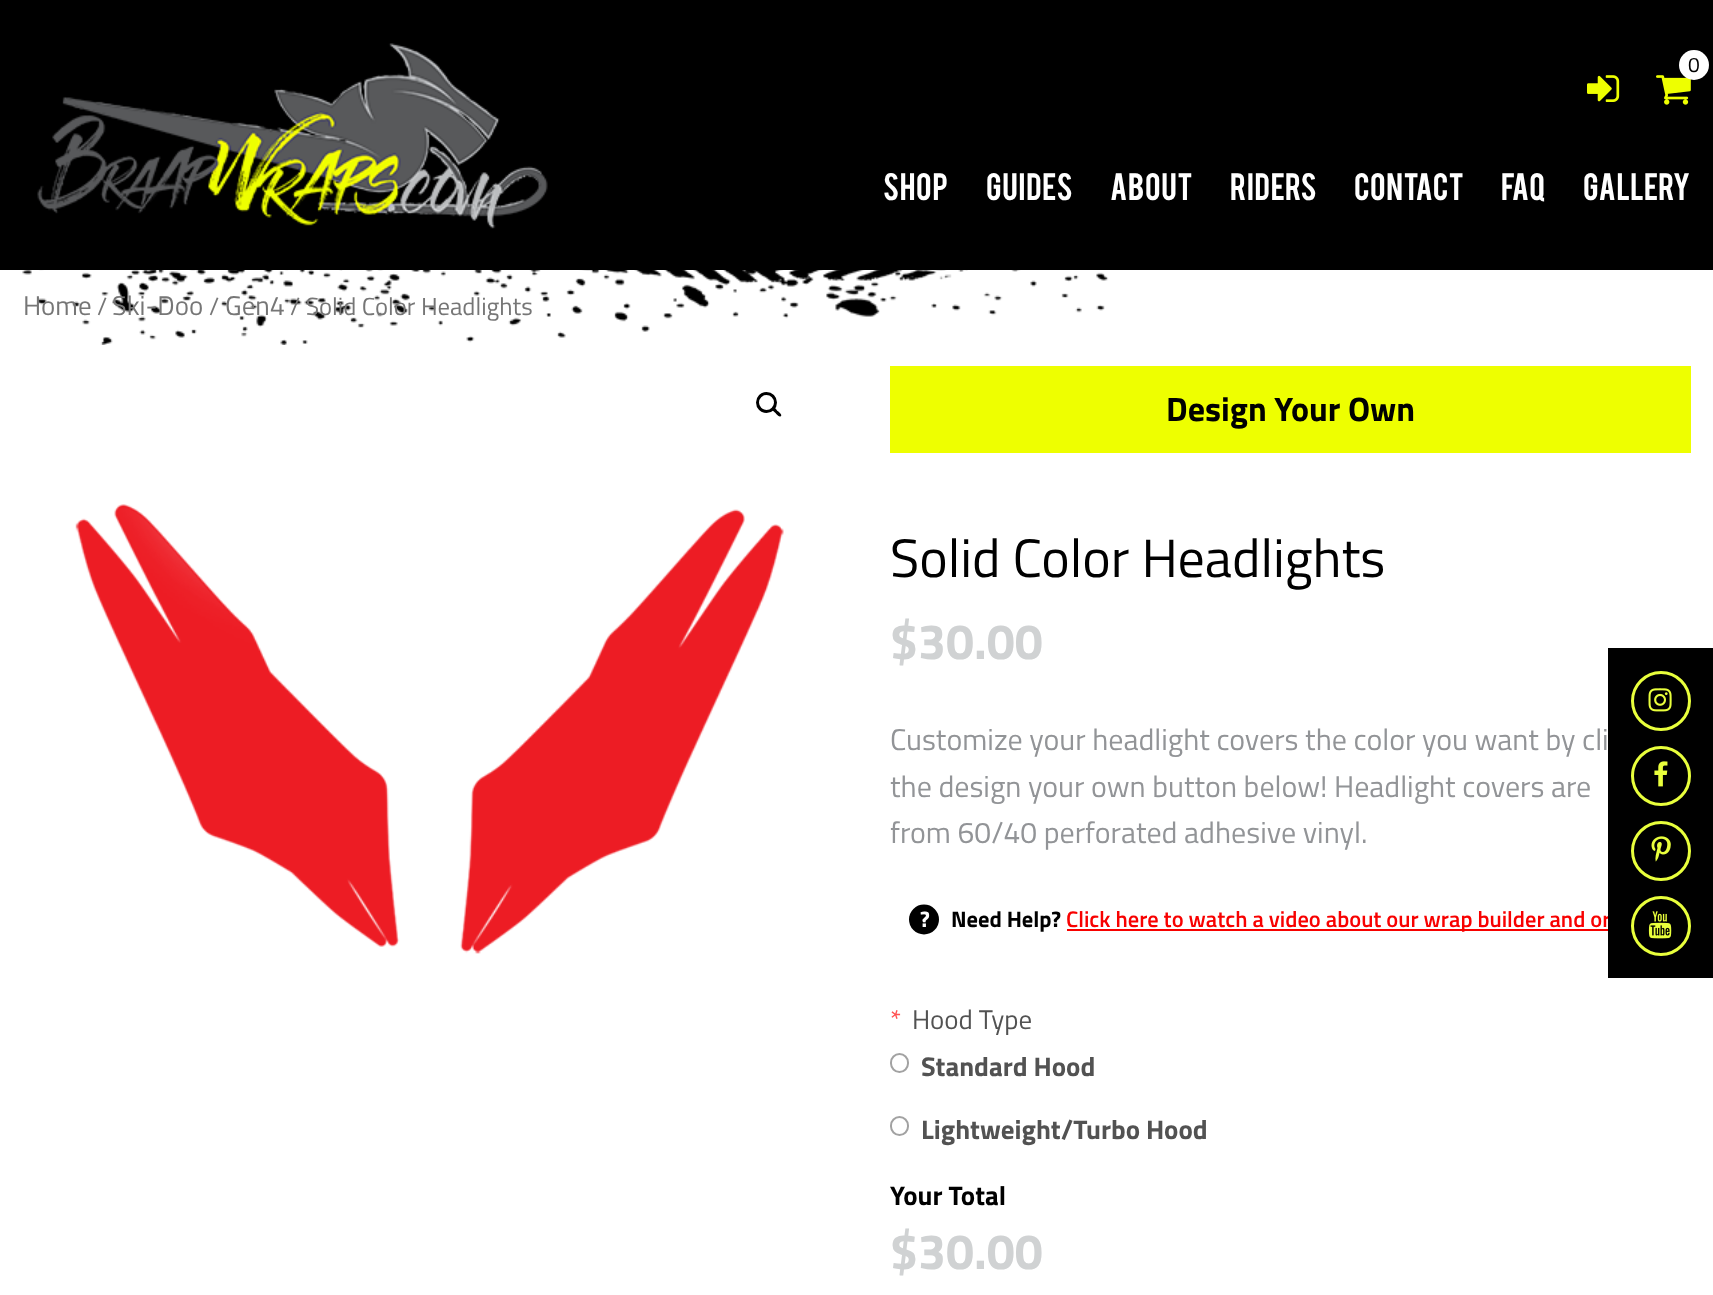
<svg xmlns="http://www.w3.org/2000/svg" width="1713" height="1295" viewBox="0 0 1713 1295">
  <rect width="100%" height="100%" fill="#fff"/>
  <path d="M0 0h1713v270H0z" fill="#000"/>
  <image x="37" y="43" width="511" height="186" href="img/1.png"/>
  <image x="1656" y="75" width="35" height="30" href="img/2.png"/>
  <circle cx="1694" cy="65" r="15" fill="#fff"/>
  <image x="1587" y="75" width="33" height="27" href="img/3.png"/>
  <image x="22" y="270" width="1087" height="75" href="img/4.png"/>
  <circle cx="766.5" cy="402.5" r="9" fill="none" stroke="#000" stroke-width="3"/>
  <path d="M772.5 407.5C774 406 777 410 777.5 411C778.5 411.5 782.5 414.5 781 416C779 418 776.5 414 775.5 413C774.5 412 770.5 409.5 772.5 407.5Z" fill="#000"/>
  <image x="75" y="504" width="709" height="450" href="img/5.png"/>
  <path d="M890 366h801v87H890z" fill="#ef0"/>
  <circle cx="924" cy="919.5" r="15" fill="#000"/>
  <path d="M1067 929h541v2H1067z" fill="#f80100"/>
  <rect x="891" y="1054" width="17" height="18" rx="8.5" fill="none" stroke="#a2a2a2" stroke-width="2"/>
  <rect x="891" y="1117" width="17" height="18" rx="8.5" fill="none" stroke="#a2a2a2" stroke-width="2"/>
  <text x="1688" y="72" font-family="Titillium Web" font-size="21" fill="#000">0</text>
  <g font-family="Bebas" font-size="30" fill="#fff">
    <text x="883" y="200">Shop</text>
    <text x="986" y="200">Guides</text>
    <text x="1110" y="200">About</text>
    <text x="1230" y="200">Riders</text>
    <text x="1354" y="200">Contact</text>
    <text x="1501" y="200">FAQ</text>
    <text x="1583" y="200">Gallery</text>
  </g>
  <text x="23" y="315" font-family="Titillium Web" font-size="27" fill="#767676">Home</text>
  <text x="97" y="315" font-family="Titillium Web" font-size="24.75" fill="#767676">/</text>
  <text x="112" y="315" font-family="Titillium Web" font-size="27" fill="#767676">Ski-Doo</text>
  <text x="209" y="315" font-family="Titillium Web" font-size="24.75" fill="#767676">/</text>
  <text x="225" y="315" font-family="Titillium Web" font-size="27" fill="#767676">Gen4</text>
  <text x="290" y="315" font-family="Titillium Web" font-size="24.75" fill="#767676">/ Solid Color Headlights</text>
  <text x="1166" y="421" font-family="Titillium Web" font-size="34" font-weight="bold" fill="#000">Design Your Own</text>
  <text x="890" y="577" font-family="Titillium Web" font-size="54" fill="#000">Solid Color Headlights</text>
  <text x="890" y="659" font-family="Titillium Web" font-size="50" font-weight="bold" fill="#d0d2d3">$30.00</text>
  <g font-family="Titillium Web" font-size="30" fill="#929497">
    <text x="890" y="750">Customize your headlight covers the color you want by cli</text>
    <text x="890" y="797">the design your own button below! Headlight covers are</text>
    <text x="890" y="843">from 60/40 perforated adhesive vinyl.</text>
  </g>
  <text x="920" y="927" font-family="Titillium Web" font-size="22.5" font-weight="bold" fill="#fff">?</text>
  <text x="951" y="927" font-family="Titillium Web" font-size="22.5" font-weight="bold" fill="#000">Need Help?</text>
  <text x="1066" y="927" font-family="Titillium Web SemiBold" font-size="22.5" font-weight="600" fill="#f80100">Click here to watch a video about our wrap builder and or</text>
  <text x="890" y="1029" font-family="Titillium Web" font-size="27" fill="#ff5252">*</text>
  <text x="912" y="1029" font-family="Titillium Web" font-size="27" fill="#525252">Hood Type</text>
  <g font-family="Titillium Web" font-size="27" font-weight="bold" fill="#525252">
    <text x="921" y="1076">Standard Hood</text>
    <text x="921" y="1139">Lightweight/Turbo Hood</text>
  </g>
  <text x="890" y="1205" font-family="Titillium Web" font-size="27" font-weight="bold" fill="#000">Your Total</text>
  <text x="890" y="1269" font-family="Titillium Web" font-size="50" font-weight="bold" fill="#d0d2d3">$30.00</text>
  <path d="M1608 648h105v330H1608z" fill="#000"/>
  <circle cx="1661" cy="701" r="28.5" fill="none" stroke="#e9ff3c" stroke-width="3"/>
  <image x="1648" y="688" width="24" height="24" href="img/6.png"/>
  <circle cx="1661" cy="776" r="28.5" fill="none" stroke="#e9ff3c" stroke-width="3"/>
  <image x="1654" y="761" width="14" height="26" href="img/7.png"/>
  <circle cx="1661" cy="851" r="28.5" fill="none" stroke="#e9ff3c" stroke-width="3"/>
  <image x="1651" y="836" width="20" height="26" href="img/8.png"/>
  <circle cx="1661" cy="926" r="28.5" fill="none" stroke="#e9ff3c" stroke-width="3"/>
  <image x="1648" y="911" width="24" height="28" href="img/9.png"/>
</svg>
